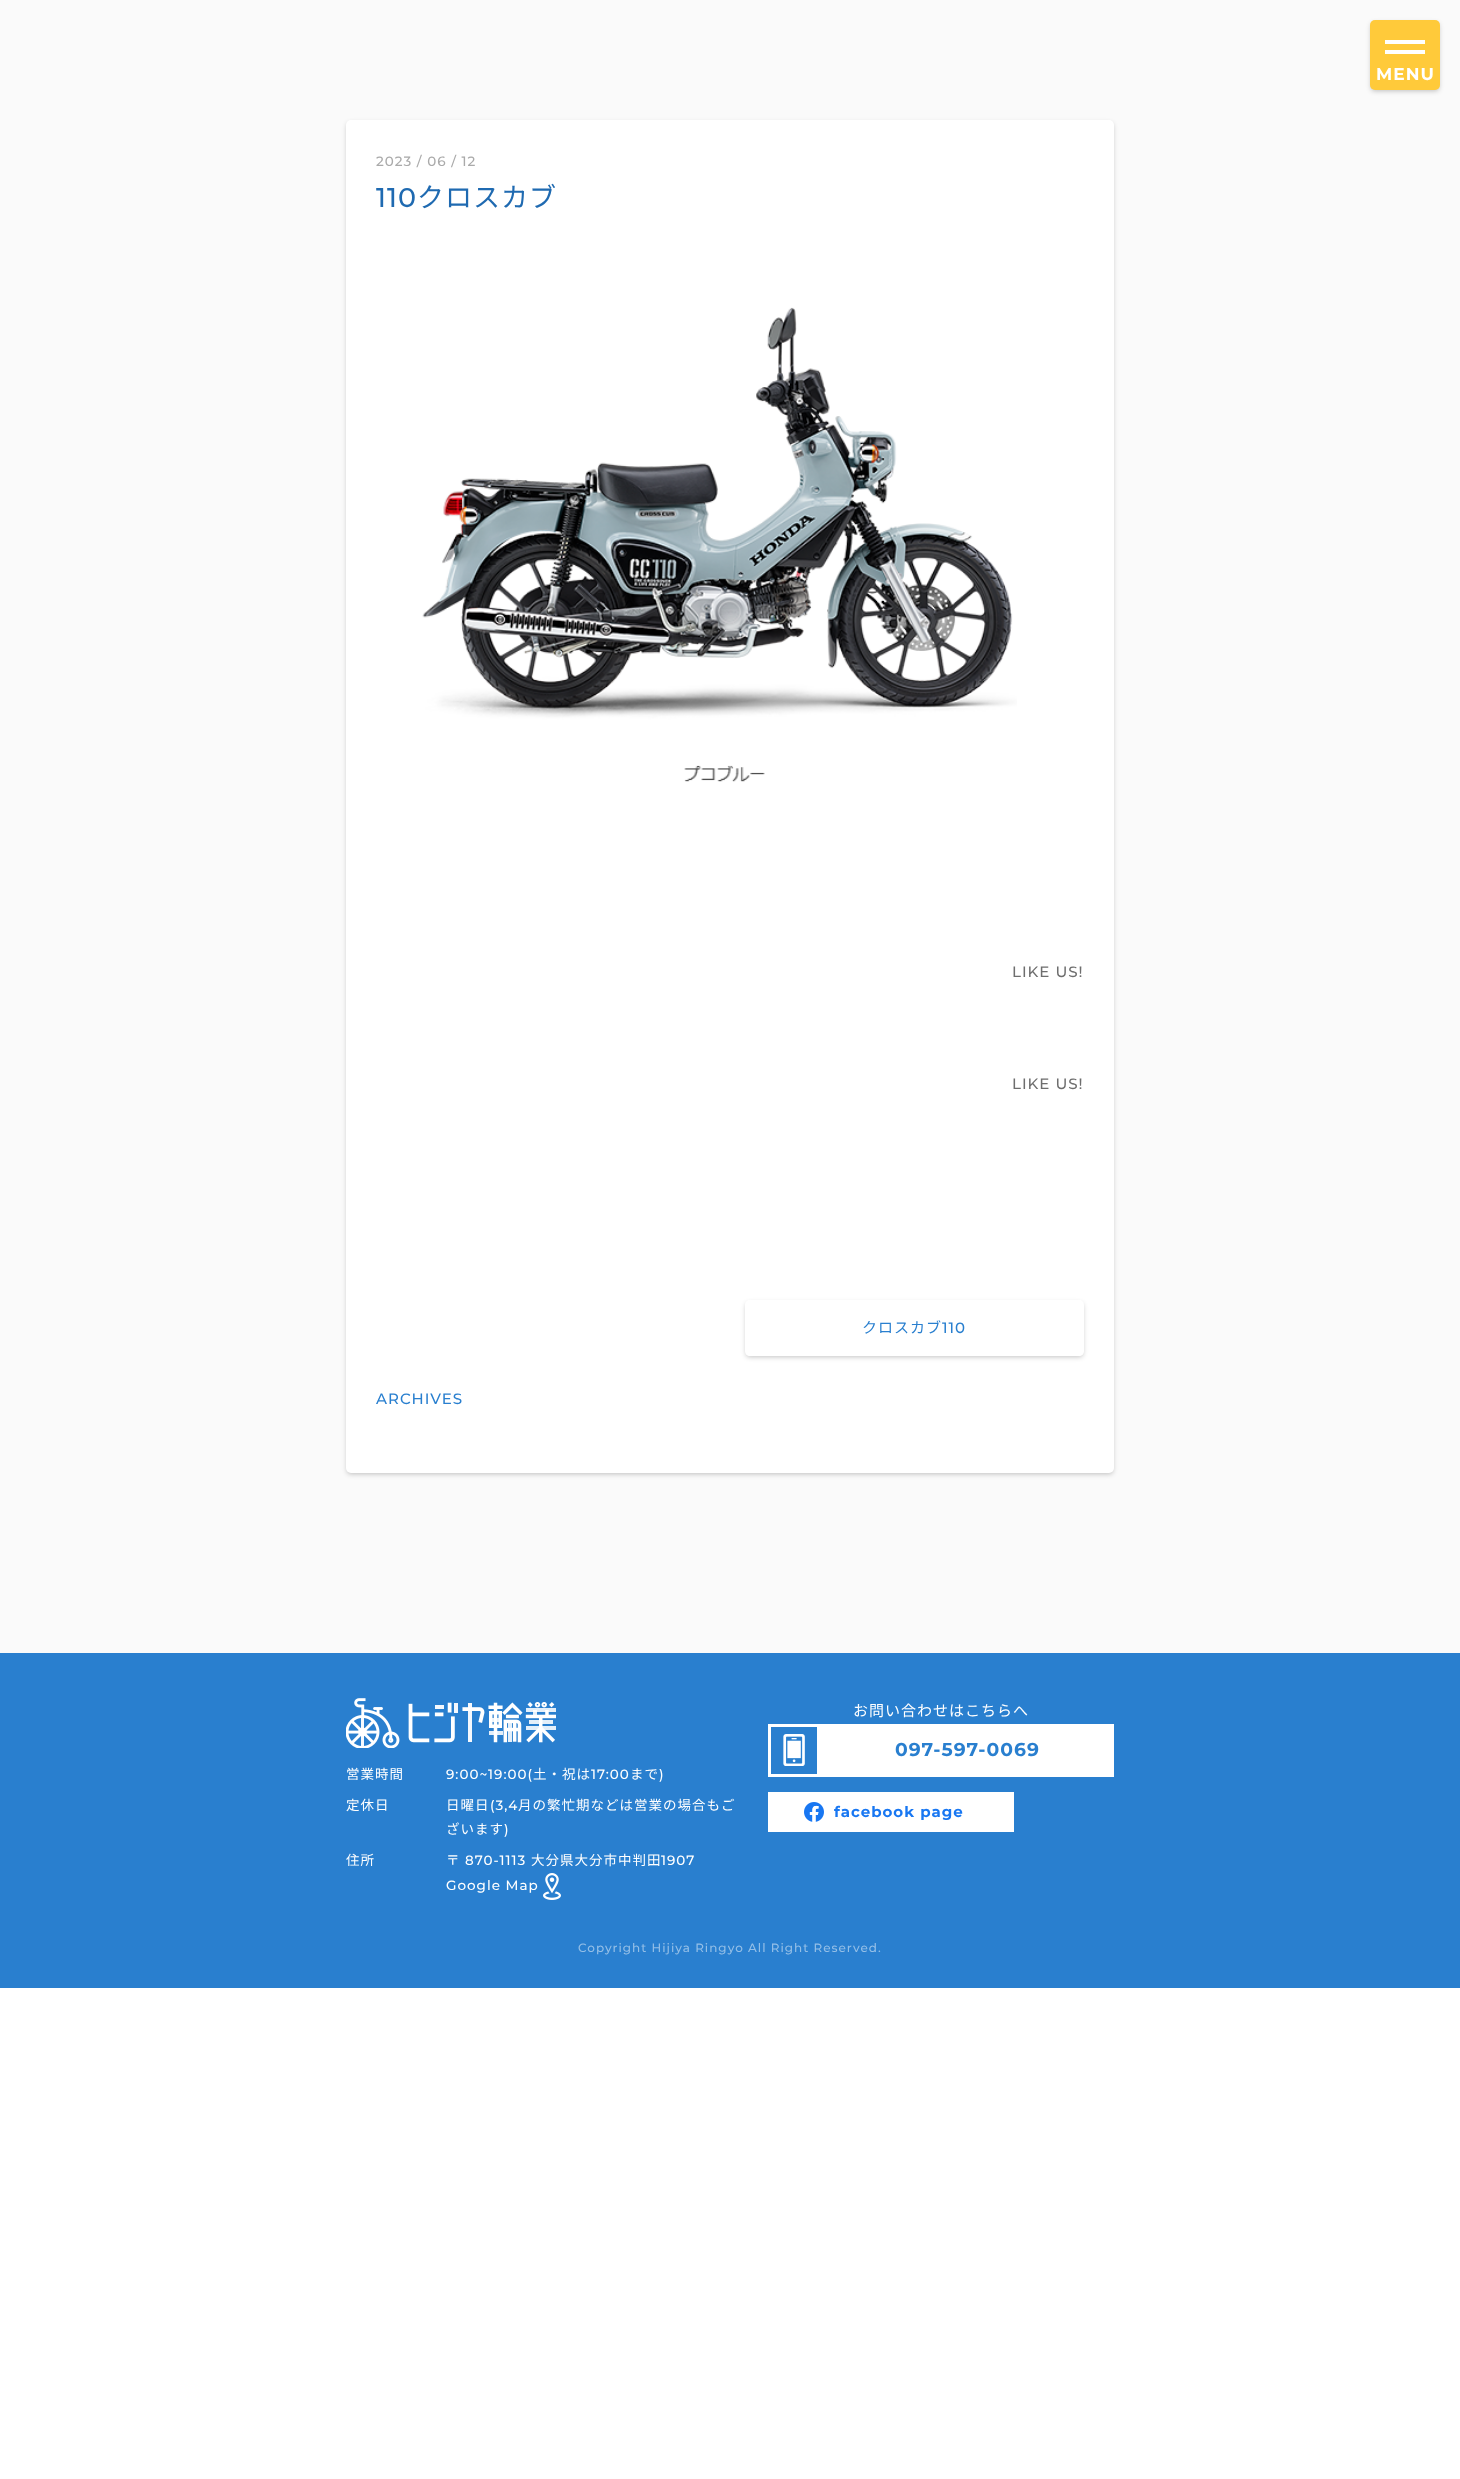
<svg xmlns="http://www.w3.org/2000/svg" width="1460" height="2479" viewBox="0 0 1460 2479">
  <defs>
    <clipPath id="clip1"><path d="M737 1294H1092V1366H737ZM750 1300H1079C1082 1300 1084 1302 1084 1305V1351C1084 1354 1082 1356 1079 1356H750C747 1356 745 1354 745 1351V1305C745 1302 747 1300 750 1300Z" clip-rule="evenodd"/></clipPath>
  </defs>
  <rect width="100%" height="100%" fill="#fff"/>
  <path d="M0 0h1460v1653H0z" fill="#fafafa"/>
  <rect x="1371" y="23" width="68" height="68" rx="4" fill="#0a0a0a40" filter="blur(2.5px)"/>
  <rect x="1370" y="20" width="70" height="70" rx="5" fill="#ffca3a"/>
  <path d="M1385 40h40v4H1385z" fill="#fff"/>
  <path d="M1385 50h40v4H1385z" fill="#fff"/>
  <rect x="347" y="123" width="766" height="1351" rx="4" fill="#0a0a0a40" filter="blur(2.5px)"/>
  <rect x="346" y="120" width="768" height="1353" rx="5" fill="#fff"/>
  <image x="422" y="307" width="595" height="475" href="img/1.png"/>
  <g clip-path="url(#clip1)">
    <rect x="746" y="1303" width="337" height="54" rx="4" fill="#0a0a0a40" filter="blur(2.5px)"/>
  </g>
  <path d="M0 1653h1460v335H0z" fill="#297fcf"/>
  <image x="346" y="1698" width="210" height="50" href="img/2.png"/>
  <image x="543" y="1873" width="18" height="27" href="img/3.png"/>
  <image x="783" y="1734" width="22" height="32" href="img/4.png"/>
  <path d="M769.5 1725.5h49v50H769.5z" fill="none" stroke="#fff" stroke-width="3"/>
  <path d="M820 1724h294v53H820z" fill="#fff"/>
  <path d="M768 1792h246v40H768z" fill="#fff"/>
  <image x="804" y="1802" width="20" height="20" href="img/5.png"/>
  <text x="1376" y="80" font-family="Montserrat" font-size="17" font-weight="bold" letter-spacing="1" fill="#fff">MENU</text>
  <text x="376" y="166" font-family="Montserrat" font-size="13.5" font-weight="500" letter-spacing="1" fill="#aaa">2023 / 06 / 12</text>
  <text x="376" y="207" font-family="Montserrat" font-size="27" font-weight="500" letter-spacing="1" fill="#1f6ab1">110</text>
  <text x="417" y="207" font-family="Noto Sans JP" font-size="27" letter-spacing="1" fill="#1f6ab1">クロスカブ</text>
  <g font-family="Montserrat" font-size="15" font-weight="500" letter-spacing="1" fill="#6e6e6e">
    <text x="1012" y="977">LIKE US!</text>
    <text x="1012" y="1089">LIKE US!</text>
  </g>
  <text x="862" y="1333" font-family="Noto Sans JP" font-size="15" letter-spacing="1" fill="#297fcf">クロスカブ</text>
  <g font-family="Montserrat" font-size="15" font-weight="500" letter-spacing="1" fill="#297fcf">
    <text x="942" y="1333">110</text>
    <text x="376" y="1404">ARCHIVES</text>
  </g>
  <text x="346" y="1779" font-family="Noto Sans JP" font-size="13.5" letter-spacing="1" fill="#fff">営業時間</text>
  <text x="446" y="1779" font-family="Montserrat" font-size="13.5" font-weight="500" letter-spacing="1" fill="#fff">9:00~19:00(</text>
  <text x="533" y="1779" font-family="Noto Sans JP" font-size="13.5" letter-spacing="1" fill="#fff">土・祝は</text>
  <text x="591" y="1779" font-family="Montserrat" font-size="13.5" font-weight="500" letter-spacing="1" fill="#fff">17:00</text>
  <text x="630" y="1779" font-family="Noto Sans JP" font-size="13.5" letter-spacing="1" fill="#fff">まで</text>
  <text x="659" y="1779" font-family="Montserrat" font-size="13.5" font-weight="500" letter-spacing="1" fill="#fff">)</text>
  <g font-family="Noto Sans JP" font-size="13.5" letter-spacing="1" fill="#fff">
    <text x="346" y="1810">定休日</text>
    <text x="446" y="1810">日曜日</text>
  </g>
  <text x="490" y="1810" font-family="Montserrat" font-size="13.5" font-weight="500" letter-spacing="1" fill="#fff">(3,4</text>
  <g font-family="Noto Sans JP" font-size="13.5" letter-spacing="1" fill="#fff">
    <text x="518" y="1810">月の繁忙期などは営業の場合もご</text>
    <text x="446" y="1834">ざいます</text>
  </g>
  <text x="504" y="1834" font-family="Montserrat" font-size="13.5" font-weight="500" letter-spacing="1" fill="#fff">)</text>
  <g font-family="Noto Sans JP" font-size="13.5" letter-spacing="1" fill="#fff">
    <text x="346" y="1865">住所</text>
    <text x="446" y="1865">〒</text>
  </g>
  <text x="465" y="1865" font-family="Montserrat" font-size="13.5" font-weight="500" letter-spacing="1" fill="#fff">870-1113</text>
  <text x="531" y="1865" font-family="Noto Sans JP" font-size="13.5" letter-spacing="1" fill="#fff">大分県大分市中判田</text>
  <g font-family="Montserrat" font-size="13.5" font-weight="500" letter-spacing="1" fill="#fff">
    <text x="661" y="1865">1907</text>
    <text x="446" y="1890">Google Map</text>
  </g>
  <text x="853" y="1716" font-family="Noto Sans JP" font-size="15" letter-spacing="1" fill="#fff">お問い合わせはこちらへ</text>
  <text x="895" y="1756" font-family="Montserrat" font-size="18.75" font-weight="bold" letter-spacing="1" fill="#297fcf">097-597-0069</text>
  <text x="834" y="1817" font-family="Montserrat" font-size="15" font-weight="bold" letter-spacing="1" fill="#1877f2">facebook page</text>
  <text x="578" y="1952" font-family="Montserrat" font-size="12" font-weight="500" letter-spacing="1" fill="#94bfe7">Copyright Hijiya Ringyo All Right Reserved.</text>
</svg>
